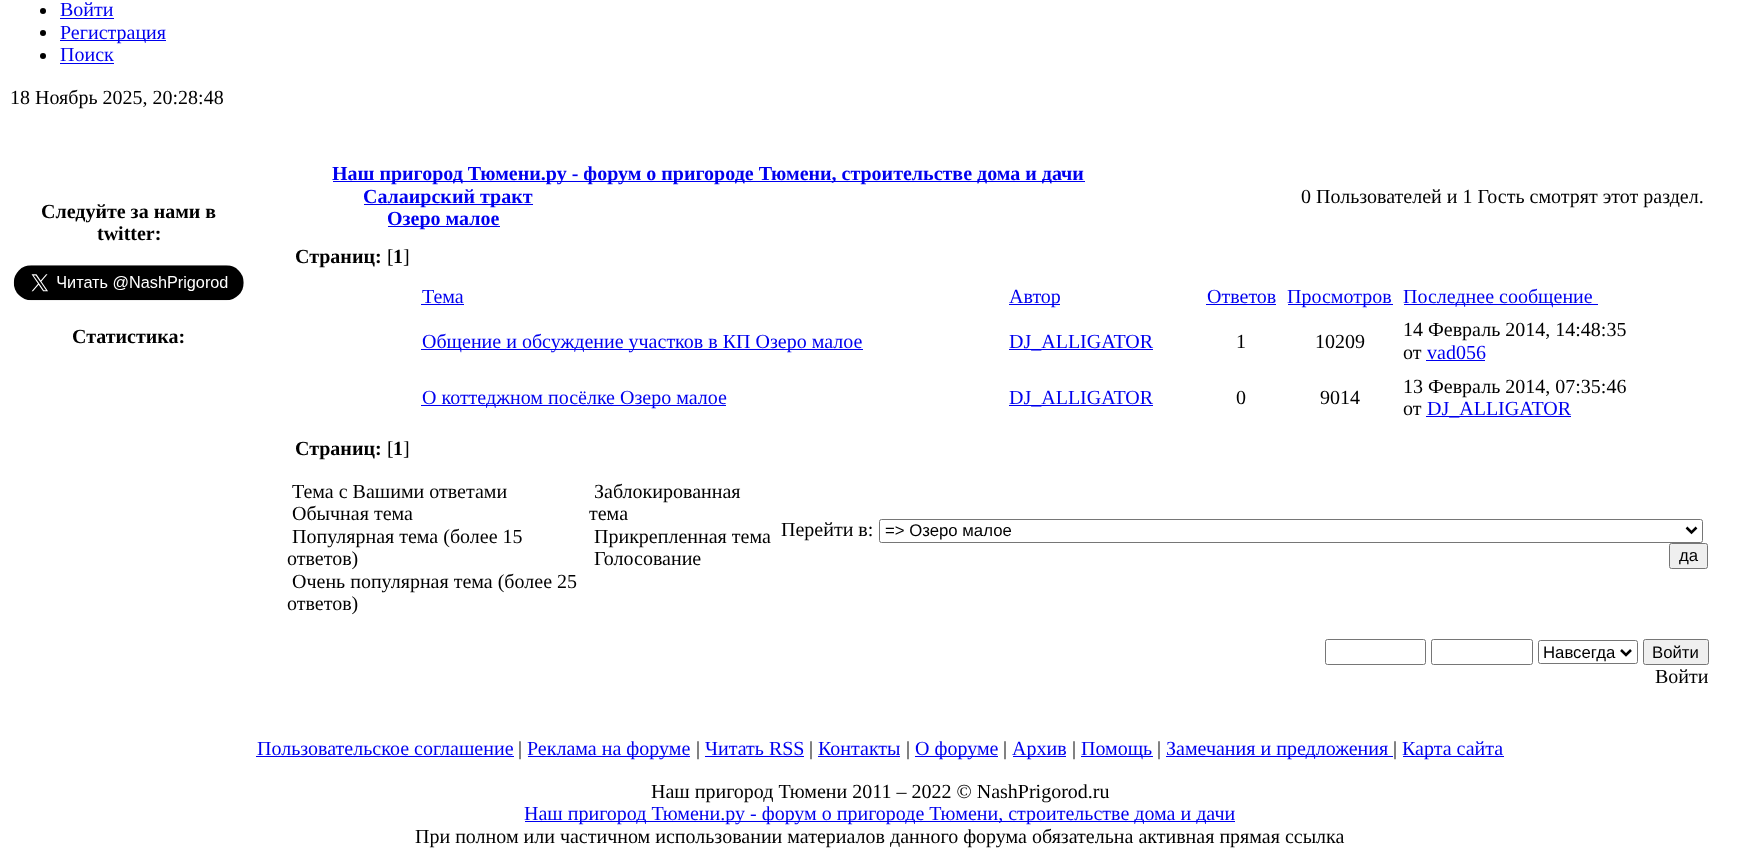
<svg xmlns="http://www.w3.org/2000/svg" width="1760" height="862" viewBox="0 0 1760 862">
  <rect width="100%" height="100%" fill="#fff"/>
  <circle cx="43" cy="11" r="3" fill="#000"/>
  <path d="M60 18h54v1H60z" fill="#00e"/>
  <circle cx="43" cy="33" r="3" fill="#000"/>
  <path d="M60 40h106v1H60z" fill="#00e"/>
  <circle cx="43" cy="56" r="3" fill="#000"/>
  <path d="M60 63h54v1H60z" fill="#00e"/>
  <image x="13" y="265" width="231" height="36" href="img/1.png"/>
  <path d="M333 181h752v1H333z" fill="#00e"/>
  <path d="M364 204h169v1H364z" fill="#00e"/>
  <path d="M388 226h112v1H388z" fill="#00e"/>
  <path d="M421 304h43v1H421z" fill="#00e"/>
  <path d="M1009 304h51v1H1009z" fill="#00e"/>
  <path d="M1206 304h70v1H1206z" fill="#00e"/>
  <path d="M1288 304h105v1H1288z" fill="#00e"/>
  <path d="M1404 304h194v1H1404z" fill="#00e"/>
  <path d="M421 349h442v1H421z" fill="#00e"/>
  <path d="M1009 349h144v1H1009z" fill="#00e"/>
  <path d="M1426 360h59v1H1426z" fill="#00e"/>
  <path d="M421 405h305v1H421z" fill="#00e"/>
  <path d="M1009 405h144v1H1009z" fill="#00e"/>
  <path d="M1426 416h145v1H1426z" fill="#00e"/>
  <rect x="879.5" y="519.5" width="823" height="23" rx="2" fill="none" stroke="#767676"/>
  <path d="M1686.5 527.5L1691.5 532.5L1696.5 527.5" fill="none" stroke="#000" stroke-width="2.5"/>
  <rect x="1669.5" y="543.5" width="38" height="25" rx="2" fill="#efefef" stroke="#767676"/>
  <rect x="1325.5" y="639.5" width="100" height="25" rx="2" fill="none" stroke="#767676"/>
  <rect x="1431.5" y="639.5" width="101" height="25" rx="2" fill="none" stroke="#767676"/>
  <rect x="1538.5" y="640.5" width="99" height="23" rx="2" fill="none" stroke="#767676"/>
  <path d="M1621 650L1626 655L1631 650" fill="none" stroke="#000" stroke-width="2.5"/>
  <rect x="1643.5" y="639.5" width="65" height="25" rx="2" fill="#efefef" stroke="#767676"/>
  <path d="M256 756h258v1H256z" fill="#00e"/>
  <path d="M528 756h162v1H528z" fill="#00e"/>
  <path d="M705 756h99v1H705z" fill="#00e"/>
  <path d="M818 756h82v1H818z" fill="#00e"/>
  <path d="M915 756h83v1H915z" fill="#00e"/>
  <path d="M1013 756h53v1H1013z" fill="#00e"/>
  <path d="M1081 756h72v1H1081z" fill="#00e"/>
  <path d="M1166 756h227v1H1166z" fill="#00e"/>
  <path d="M1403 756h101v1H1403z" fill="#00e"/>
  <path d="M525 821h710v1H525z" fill="#00e"/>
  <g font-family="Liberation Serif" font-size="20" fill="#00e">
    <text x="60" y="16">Войти</text>
    <text x="60" y="39">Регистрация</text>
    <text x="60" y="61">Поиск</text>
  </g>
  <text x="10" y="104" font-family="Liberation Serif" font-size="20" fill="#000">18 Ноябрь 2025, 20:28:48</text>
  <g font-family="Liberation Serif" font-size="20" font-weight="bold" fill="#000">
    <text x="41" y="218">Следуйте за нами в</text>
    <text x="97" y="240">twitter:</text>
    <text x="72" y="343">Статистика:</text>
  </g>
  <g font-family="Liberation Serif" font-size="20" font-weight="bold" fill="#00e">
    <text x="332" y="180">Наш пригород Тюмени.ру - форум о пригороде Тюмени, строительстве дома и дачи</text>
    <text x="363" y="203">Салаирский тракт</text>
    <text x="387" y="225">Озеро малое</text>
  </g>
  <text x="1301" y="203" font-family="Liberation Serif" font-size="20" fill="#000">0 Пользователей и 1 Гость смотрят этот раздел.</text>
  <text x="295" y="263" font-family="Liberation Serif" font-size="20" font-weight="bold" fill="#000">Страниц:</text>
  <text x="387" y="263" font-family="Liberation Serif" font-size="20" fill="#000">[</text>
  <text x="393" y="263" font-family="Liberation Serif" font-size="20" font-weight="bold" fill="#000">1</text>
  <text x="403" y="263" font-family="Liberation Serif" font-size="20" fill="#000">]</text>
  <g font-family="Liberation Serif" font-size="20" fill="#00e">
    <text x="422" y="303">Тема</text>
    <text x="1009" y="303">Автор</text>
    <text x="1207" y="303">Ответов</text>
    <text x="1287" y="303">Просмотров</text>
    <text x="1403" y="303">Последнее сообщение</text>
    <text x="422" y="348">Общение и обсуждение участков в КП Озеро малое</text>
    <text x="1009" y="348">DJ_ALLIGATOR</text>
  </g>
  <g font-family="Liberation Serif" font-size="20" fill="#000">
    <text x="1236" y="348">1</text>
    <text x="1315" y="348">10209</text>
    <text x="1403" y="336">14 Февраль 2014, 14:48:35</text>
    <text x="1403" y="359">от</text>
  </g>
  <g font-family="Liberation Serif" font-size="20" fill="#00e">
    <text x="1427" y="359">vad056</text>
    <text x="422" y="404">О коттеджном посёлке Озеро малое</text>
    <text x="1009" y="404">DJ_ALLIGATOR</text>
  </g>
  <g font-family="Liberation Serif" font-size="20" fill="#000">
    <text x="1236" y="404">0</text>
    <text x="1320" y="404">9014</text>
    <text x="1403" y="393">13 Февраль 2014, 07:35:46</text>
    <text x="1403" y="415">от</text>
  </g>
  <text x="1427" y="415" font-family="Liberation Serif" font-size="20" fill="#00e">DJ_ALLIGATOR</text>
  <text x="295" y="455" font-family="Liberation Serif" font-size="20" font-weight="bold" fill="#000">Страниц:</text>
  <text x="387" y="455" font-family="Liberation Serif" font-size="20" fill="#000">[</text>
  <text x="393" y="455" font-family="Liberation Serif" font-size="20" font-weight="bold" fill="#000">1</text>
  <g font-family="Liberation Serif" font-size="20" fill="#000">
    <text x="403" y="455">]</text>
    <text x="292" y="498">Тема с Вашими ответами</text>
    <text x="292" y="520">Обычная тема</text>
    <text x="292" y="543">Популярная тема (более 15</text>
    <text x="287" y="565">ответов)</text>
    <text x="292" y="588">Очень популярная тема (более 25</text>
    <text x="287" y="610">ответов)</text>
    <text x="594" y="498">Заблокированная</text>
    <text x="589" y="520">тема</text>
    <text x="594" y="543">Прикрепленная тема</text>
    <text x="594" y="565">Голосование</text>
    <text x="781" y="536">Перейти в:</text>
  </g>
  <g font-family="Liberation Sans" font-size="16.75" fill="#000">
    <text x="885" y="536">=&gt; Озеро малое</text>
    <text x="1679" y="561">да</text>
    <text x="1543" y="658">Навсегда</text>
    <text x="1652" y="658">Войти</text>
  </g>
  <text x="1655" y="683" font-family="Liberation Serif" font-size="20" fill="#000">Войти</text>
  <text x="257" y="755" font-family="Liberation Serif" font-size="20" fill="#00e">Пользовательское соглашение</text>
  <text x="518" y="755" font-family="Liberation Serif" font-size="20" fill="#000">|</text>
  <text x="527" y="755" font-family="Liberation Serif" font-size="20" fill="#00e">Реклама на форуме</text>
  <text x="696" y="755" font-family="Liberation Serif" font-size="20" fill="#000">|</text>
  <text x="705" y="755" font-family="Liberation Serif" font-size="20" fill="#00e">Читать RSS</text>
  <text x="809" y="755" font-family="Liberation Serif" font-size="20" fill="#000">|</text>
  <text x="818" y="755" font-family="Liberation Serif" font-size="20" fill="#00e">Контакты</text>
  <text x="906" y="755" font-family="Liberation Serif" font-size="20" fill="#000">|</text>
  <text x="915" y="755" font-family="Liberation Serif" font-size="20" fill="#00e">О форуме</text>
  <text x="1003" y="755" font-family="Liberation Serif" font-size="20" fill="#000">|</text>
  <text x="1012" y="755" font-family="Liberation Serif" font-size="20" fill="#00e">Архив</text>
  <text x="1072" y="755" font-family="Liberation Serif" font-size="20" fill="#000">|</text>
  <text x="1081" y="755" font-family="Liberation Serif" font-size="20" fill="#00e">Помощь</text>
  <text x="1157" y="755" font-family="Liberation Serif" font-size="20" fill="#000">|</text>
  <text x="1166" y="755" font-family="Liberation Serif" font-size="20" fill="#00e">Замечания и предложения</text>
  <text x="1393" y="755" font-family="Liberation Serif" font-size="20" fill="#000">|</text>
  <text x="1402" y="755" font-family="Liberation Serif" font-size="20" fill="#00e">Карта сайта</text>
  <text x="651" y="798" font-family="Liberation Serif" font-size="20" fill="#000">Наш пригород Тюмени 2011 – 2022 © NashPrigorod.ru</text>
  <text x="524" y="820" font-family="Liberation Serif" font-size="20" fill="#00e">Наш пригород Тюмени.ру - форум о пригороде Тюмени, строительстве дома и дачи</text>
  <text x="415" y="843" font-family="Liberation Serif" font-size="20" fill="#000">При полном или частичном использовании материалов данного форума обязательна активная прямая ссылка</text>
</svg>
